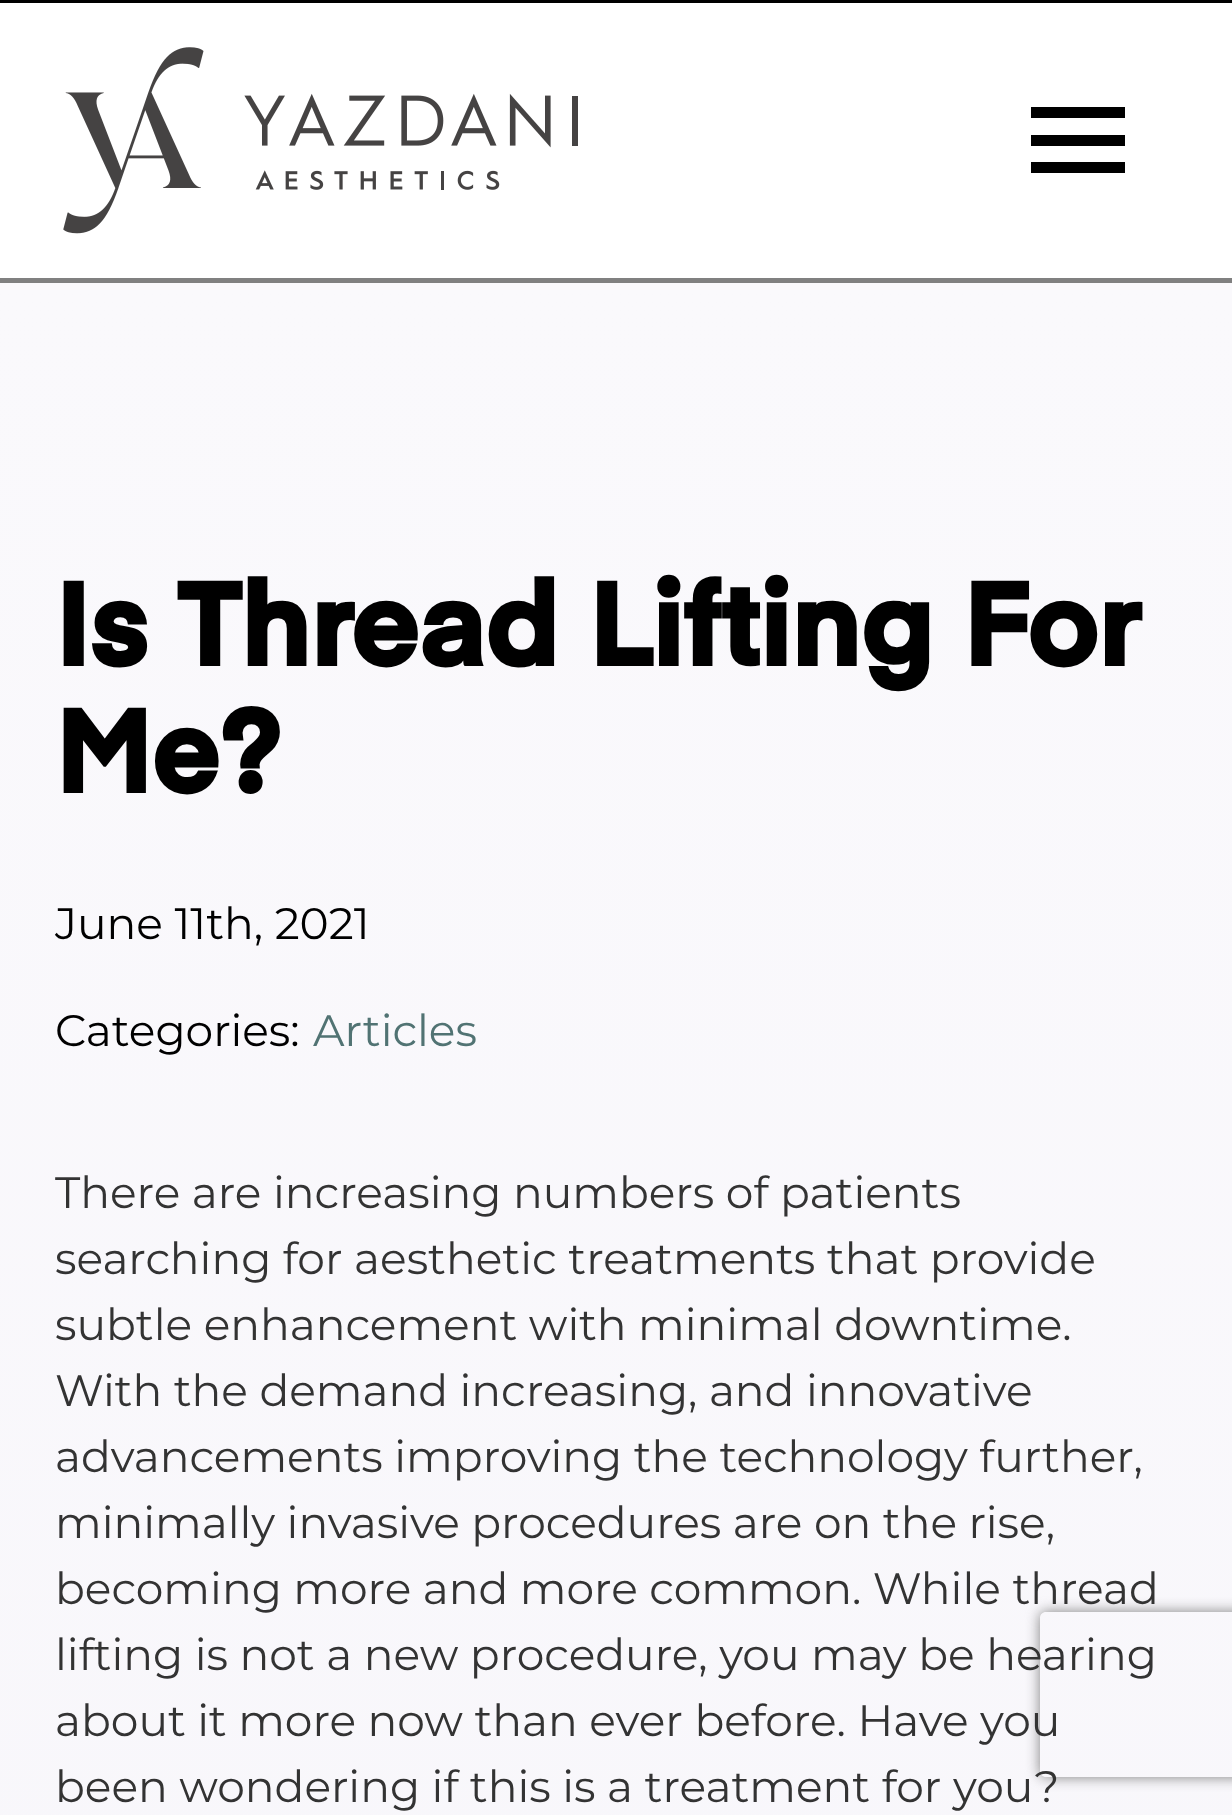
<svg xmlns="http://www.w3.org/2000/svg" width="1232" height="1815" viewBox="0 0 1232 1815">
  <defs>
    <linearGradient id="g1" gradientUnits="userSpaceOnUse" x1="616" y1="283" x2="616" y2="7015"><stop offset="0" stop-color="#faf9fc"/><stop offset="1" stop-color="#f3f1f8"/></linearGradient>
    <clipPath id="clip1"><path d="M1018 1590H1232V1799H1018ZM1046 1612H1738C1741.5 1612 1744 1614.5 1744 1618V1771C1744 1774.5 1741.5 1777 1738 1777H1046C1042.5 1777 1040 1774.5 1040 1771V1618C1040 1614.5 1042.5 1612 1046 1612Z" clip-rule="evenodd"/></clipPath>
  </defs>
  <rect width="100%" height="100%" fill="#fff"/>
  <path d="M0 0h1232v3H0z" fill="#000"/>
  <path d="M0 278h1232v5H0z" fill="#808080"/>
  <image x="63" y="47" width="515" height="187" href="img/1.png"/>
  <path d="M1031 107h94v11H1031z" fill="#000"/>
  <path d="M1031 135h94v11H1031z" fill="#000"/>
  <path d="M1031 162h94v11H1031z" fill="#000"/>
  <path d="M0 283h1232v1532H0z" fill="url(#g1)"/>
  <g clip-path="url(#clip1)">
    <rect x="1040" y="1612" width="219" height="165" rx="6" fill="#808080" filter="blur(7px)"/>
  </g>
  <g font-family="'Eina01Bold'" font-size="115.5" font-weight="bold" fill="#000">
    <text x="55" y="666">Is Thread Lifting For</text>
    <text x="55" y="793">Me?</text>
  </g>
  <g font-family="Montserrat" font-size="44" fill="#000">
    <text x="55" y="939">June 11th, 2021</text>
    <text x="55" y="1046">Categories:</text>
  </g>
  <text x="313" y="1046" font-family="Montserrat" font-size="44" fill="#517373">Articles</text>
  <g font-family="Montserrat" font-size="44" fill="#333">
    <text x="55" y="1208">There are increasing numbers of patients</text>
    <text x="55" y="1274">searching for aesthetic treatments that provide</text>
    <text x="55" y="1340">subtle enhancement with minimal downtime.</text>
    <text x="55" y="1406">With the demand increasing, and innovative</text>
    <text x="55" y="1472">advancements improving the technology further,</text>
    <text x="55" y="1538">minimally invasive procedures are on the rise,</text>
    <text x="55" y="1604">becoming more and more common. While thread</text>
    <text x="55" y="1670">lifting is not a new procedure, you may be hearing</text>
    <text x="55" y="1736">about it more now than ever before. Have you</text>
    <text x="55" y="1802">been wondering if this is a treatment for you?</text>
  </g>
</svg>
